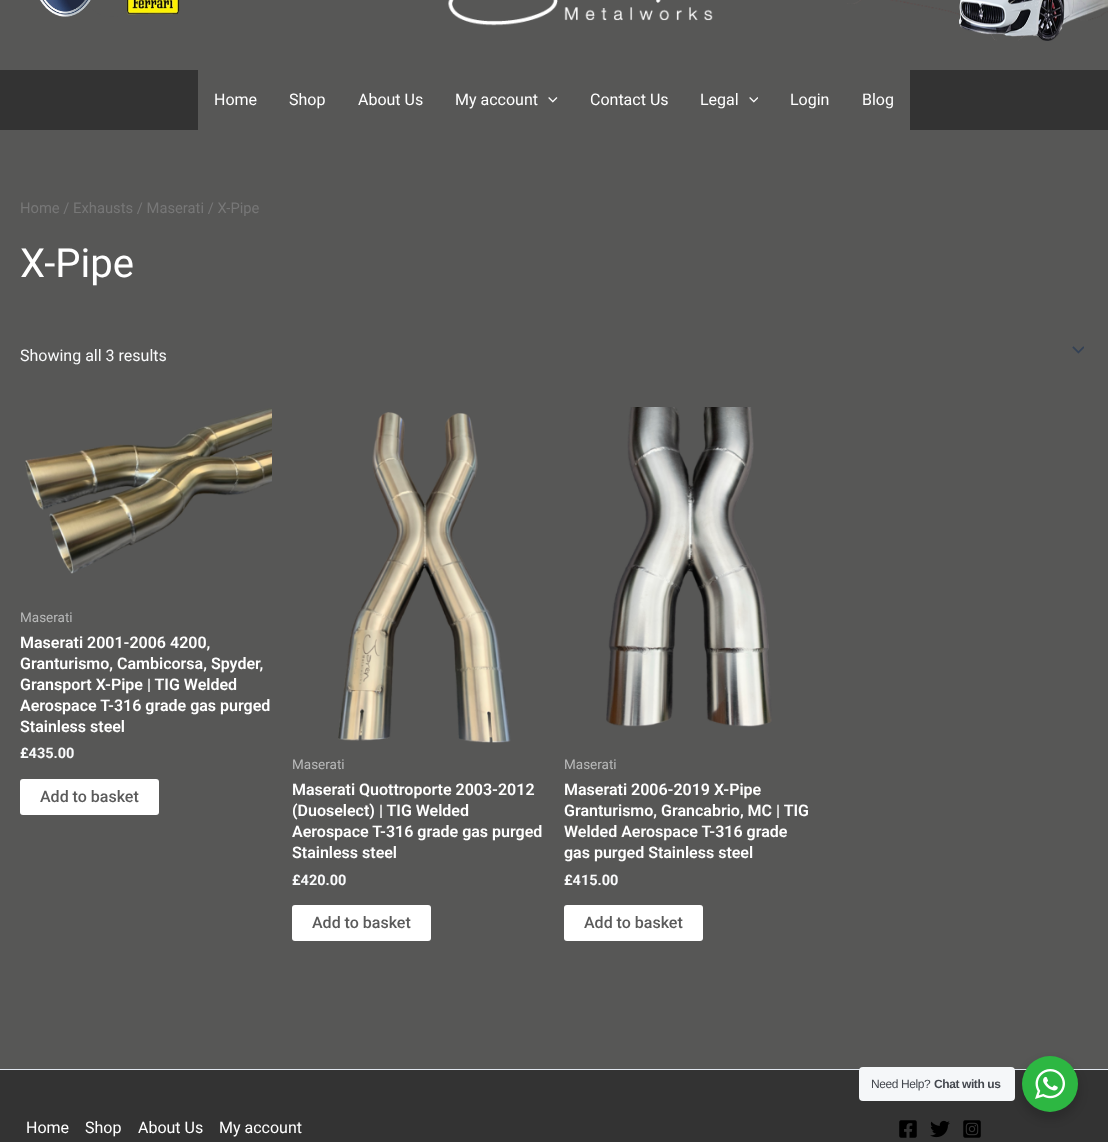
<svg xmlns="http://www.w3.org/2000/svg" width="1108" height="1142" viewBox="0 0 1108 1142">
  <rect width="100%" height="100%" fill="#575756"/>
  <image x="39" y="0" width="141" height="17" href="img/1.png"/>
  <image x="448" y="0" width="265" height="26" href="img/2.png"/>
  <image x="847" y="0" width="261" height="41" href="img/3.png"/>
  <path d="M0 70h1108v60H0z" fill="#333"/>
  <path d="M198 70h712v60H198z" fill="#575756"/>
  <image x="548" y="97" width="10" height="6" href="img/4.png"/>
  <image x="749" y="97" width="9" height="6" href="img/5.png"/>
  <image x="1072" y="346" width="12" height="8" href="img/6.png"/>
  <image x="25" y="408" width="247" height="166" href="img/7.png"/>
  <rect x="20" y="779" width="139" height="36" rx="3" fill="#fff"/>
  <image x="338" y="412" width="173" height="331" href="img/8.png"/>
  <rect x="292" y="905" width="139" height="36" rx="3" fill="#fff"/>
  <image x="606" y="407" width="166" height="320" href="img/9.png"/>
  <rect x="564" y="905" width="139" height="36" rx="3" fill="#fff"/>
  <path d="M0 1070h1108v72H0z" fill="#333"/>
  <path d="M0 1069h1108v1H0z" fill="#e2e8f0"/>
  <image x="899" y="1120" width="18" height="18" href="img/10.png"/>
  <image x="930" y="1120" width="20" height="18" href="img/11.png"/>
  <image x="963" y="1120" width="18" height="18" href="img/12.png"/>
  <rect x="1020" y="1060" width="60" height="60" rx="30" fill="#00000024" filter="blur(4px)"/>
  <rect x="859" y="1067" width="156" height="34" rx="4" fill="#f5f7f9"/>
  <circle cx="1050" cy="1084" r="28" fill="#2db742"/>
  <image x="1035" y="1069" width="30" height="30" href="img/13.png"/>
  <g font-family="Roboto" font-size="16" fill="#fff">
    <text x="214" y="105">Home</text>
    <text x="289" y="105">Shop</text>
    <text x="358" y="105">About Us</text>
    <text x="455" y="105">My account</text>
    <text x="590" y="105">Contact Us</text>
    <text x="700" y="105">Legal</text>
    <text x="790" y="105">Login</text>
    <text x="862" y="105">Blog</text>
  </g>
  <text x="20" y="213" font-family="Roboto" font-size="14.75" fill="#777">Home / Exhausts / Maserati / X-Pipe</text>
  <text x="20" y="277" font-family="Roboto" font-size="40" fill="#fff">X-Pipe</text>
  <text x="20" y="361" font-family="Roboto" font-size="16" fill="#f9fafb">Showing all 3 results</text>
  <text x="20" y="622" font-family="Roboto" font-size="13.5" fill="#b8b9b9">Maserati</text>
  <g font-family="Roboto" font-size="16" font-weight="600" fill="#fff">
    <text x="20" y="648">Maserati 2001-2006 4200,</text>
    <text x="20" y="669">Granturismo, Cambicorsa, Spyder,</text>
    <text x="20" y="690">Gransport X-Pipe | TIG Welded</text>
    <text x="20" y="711">Aerospace T-316 grade gas purged</text>
    <text x="20" y="732">Stainless steel</text>
  </g>
  <text x="20" y="758" font-family="Roboto" font-size="14.5" font-weight="bold" fill="#f9fafb">£435.00</text>
  <text x="40" y="802" font-family="Roboto" font-size="16" font-weight="500" fill="#5b5b5b">Add to basket</text>
  <text x="292" y="769" font-family="Roboto" font-size="13.5" fill="#b8b9b9">Maserati</text>
  <g font-family="Roboto" font-size="16" font-weight="600" fill="#fff">
    <text x="292" y="795">Maserati Quottroporte 2003-2012</text>
    <text x="292" y="816">(Duoselect) | TIG Welded</text>
    <text x="292" y="837">Aerospace T-316 grade gas purged</text>
    <text x="292" y="858">Stainless steel</text>
  </g>
  <text x="292" y="885" font-family="Roboto" font-size="14.5" font-weight="bold" fill="#f9fafb">£420.00</text>
  <text x="312" y="928" font-family="Roboto" font-size="16" font-weight="500" fill="#5b5b5b">Add to basket</text>
  <text x="564" y="769" font-family="Roboto" font-size="13.5" fill="#b8b9b9">Maserati</text>
  <g font-family="Roboto" font-size="16" font-weight="600" fill="#fff">
    <text x="564" y="795">Maserati 2006-2019 X-Pipe</text>
    <text x="564" y="816">Granturismo, Grancabrio, MC | TIG</text>
    <text x="564" y="837">Welded Aerospace T-316 grade</text>
    <text x="564" y="858">gas purged Stainless steel</text>
  </g>
  <text x="564" y="885" font-family="Roboto" font-size="14.5" font-weight="bold" fill="#f9fafb">£415.00</text>
  <text x="584" y="928" font-family="Roboto" font-size="16" font-weight="500" fill="#5b5b5b">Add to basket</text>
  <g font-family="Roboto" font-size="16" fill="#fff">
    <text x="26" y="1133">Home</text>
    <text x="85" y="1133">Shop</text>
    <text x="138" y="1133">About Us</text>
    <text x="219" y="1133">My account</text>
  </g>
  <text x="871" y="1088" font-family="Liberation Sans" font-size="12" letter-spacing="-0.4" fill="#43474e">Need Help?</text>
  <text x="934" y="1088" font-family="Liberation Sans" font-size="12" font-weight="bold" letter-spacing="-0.4" fill="#43474e">Chat with us</text>
</svg>
